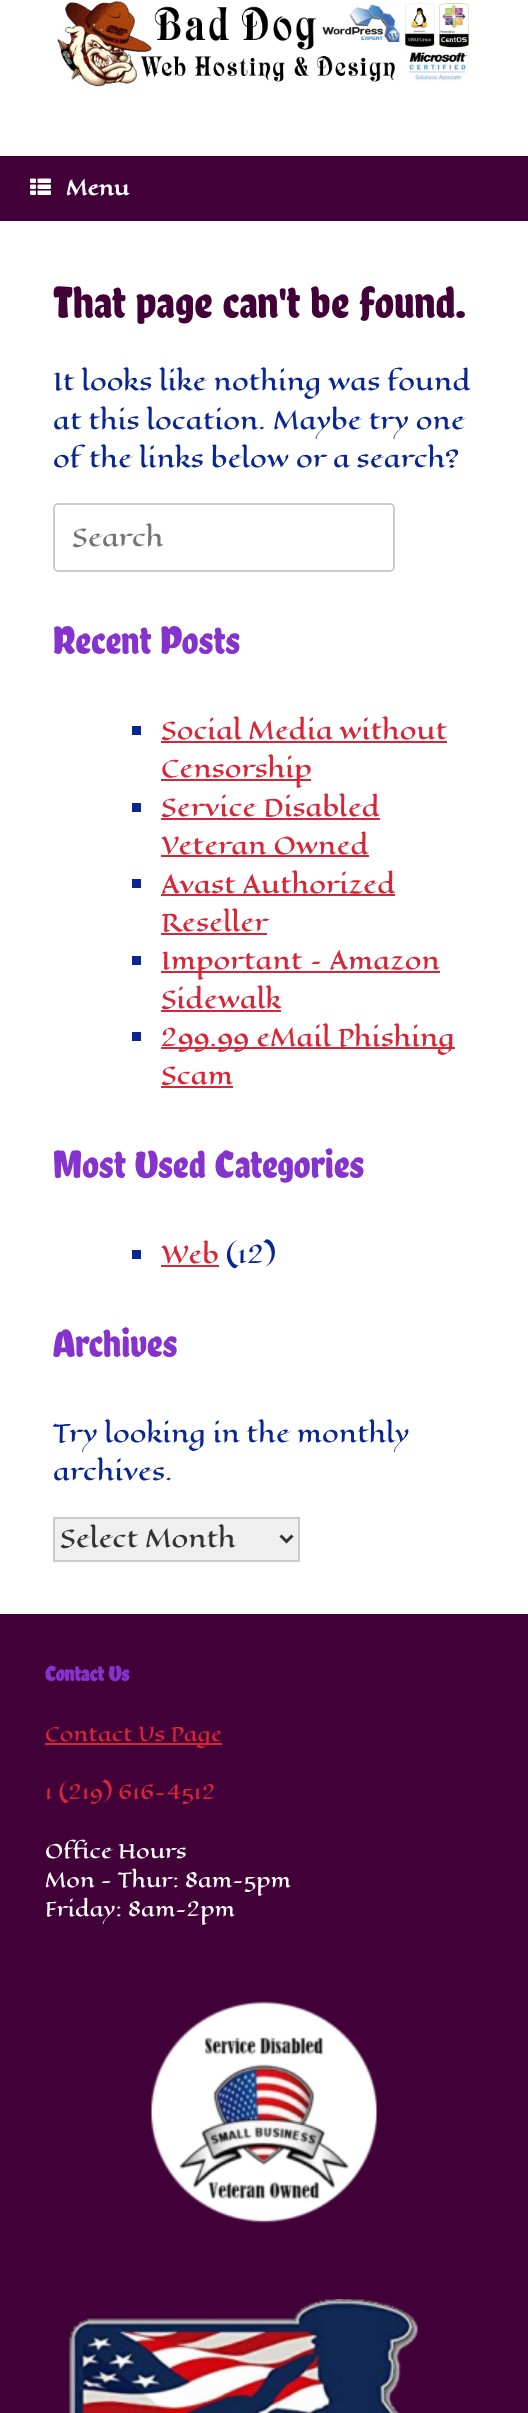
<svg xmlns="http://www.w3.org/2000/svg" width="528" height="2413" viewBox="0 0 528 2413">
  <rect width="100%" height="100%" fill="#420039"/>
  <path d="M0 0h528v156H0z" fill="#fff"/>
  <image x="57" y="1" width="413" height="86" href="img/1.png"/>
  <image x="30" y="178" width="21" height="17" href="img/2.png"/>
  <path d="M0 221h528v1393H0z" fill="#fff"/>
  <rect x="54" y="504" width="340" height="67" rx="4" fill="none" stroke="#ccc" stroke-width="2"/>
  <path d="M132 726h9v9H132z" fill="#0a2791"/>
  <path d="M161 741h286v2H161z" fill="#d72638"/>
  <path d="M161 779h150v2H161z" fill="#d72638"/>
  <path d="M132 803h9v9H132z" fill="#0a2791"/>
  <path d="M161 818h219v2H161z" fill="#d72638"/>
  <path d="M161 855h208v2H161z" fill="#d72638"/>
  <path d="M132 879h9v9H132z" fill="#0a2791"/>
  <path d="M161 894h234v2H161z" fill="#d72638"/>
  <path d="M161 933h106v2H161z" fill="#d72638"/>
  <path d="M132 956h9v9H132z" fill="#0a2791"/>
  <path d="M161 971h279v2H161z" fill="#d72638"/>
  <path d="M161 1010h120v2H161z" fill="#d72638"/>
  <path d="M132 1032h9v9H132z" fill="#0a2791"/>
  <path d="M161 1047h294v2H161z" fill="#d72638"/>
  <path d="M161 1086h72v2H161z" fill="#d72638"/>
  <path d="M132 1250h9v9H132z" fill="#0a2791"/>
  <path d="M161 1265h58v2H161z" fill="#d72638"/>
  <path d="M54 1518h245v43H54z" fill="#efefef" stroke="#ccc" stroke-width="2"/>
  <path d="M280.5 1535.5L286.5 1541.5L292.5 1535.5" fill="none" stroke="#333" stroke-width="3"/>
  <path d="M45 1743h177v2H45z" fill="#d72638"/>
  <image x="151" y="2001" width="226" height="222" href="img/3.png"/>
  <image x="69" y="2299" width="350" height="114" href="img/4.png"/>
  <text x="66" y="195" font-family="Eagle Lake" font-size="19.5" font-weight="bold" fill="#fff">Menu</text>
  <text x="53" y="318" font-family="Chela One" font-size="45" fill="#420039">That page can't be found.</text>
  <g font-family="Eagle Lake" font-size="24" fill="#0a2791">
    <text x="53" y="390">It looks like nothing was found</text>
    <text x="53" y="429">at this location. Maybe try one</text>
    <text x="53" y="467">of the links below or a search?</text>
  </g>
  <text x="72" y="546" font-family="Eagle Lake" font-size="24" fill="#757575">Search</text>
  <text x="53" y="654" font-family="Chela One" font-size="39" fill="#8632cd">Recent Posts</text>
  <g font-family="Eagle Lake" font-size="24" fill="#d72638">
    <text x="161" y="739">Social Media without</text>
    <text x="161" y="777">Censorship</text>
    <text x="161" y="816">Service Disabled</text>
    <text x="161" y="854">Veteran Owned</text>
    <text x="161" y="893">Avast Authorized</text>
    <text x="161" y="931">Reseller</text>
    <text x="161" y="969">Important – Amazon</text>
    <text x="161" y="1008">Sidewalk</text>
    <text x="161" y="1046">299.99 eMail Phishing</text>
    <text x="161" y="1084">Scam</text>
  </g>
  <text x="53" y="1178" font-family="Chela One" font-size="39" fill="#8632cd">Most Used Categories</text>
  <text x="161" y="1263" font-family="Eagle Lake" font-size="24" fill="#d72638">Web</text>
  <text x="226" y="1263" font-family="Eagle Lake" font-size="24" fill="#0a2791">(12)</text>
  <text x="53" y="1357" font-family="Chela One" font-size="39" fill="#8632cd">Archives</text>
  <g font-family="Eagle Lake" font-size="24" fill="#0a2791">
    <text x="53" y="1442">Try looking in the monthly</text>
    <text x="53" y="1480">archives.</text>
  </g>
  <text x="60" y="1547" font-family="Eagle Lake" font-size="24" fill="#333">Select Month</text>
  <text x="45" y="1681" font-family="Chela One" font-size="21" font-weight="bold" fill="#8632cd">Contact Us</text>
  <g font-family="Eagle Lake" font-size="19.5" fill="#d72638">
    <text x="45" y="1741">Contact Us Page</text>
    <text x="45" y="1799">1 (219) 616-4512</text>
  </g>
  <g font-family="Eagle Lake" font-size="19.5" fill="#fff">
    <text x="45" y="1858">Office Hours</text>
    <text x="45" y="1887">Mon - Thur: 8am-5pm</text>
    <text x="45" y="1916">Friday: 8am-2pm</text>
  </g>
</svg>
